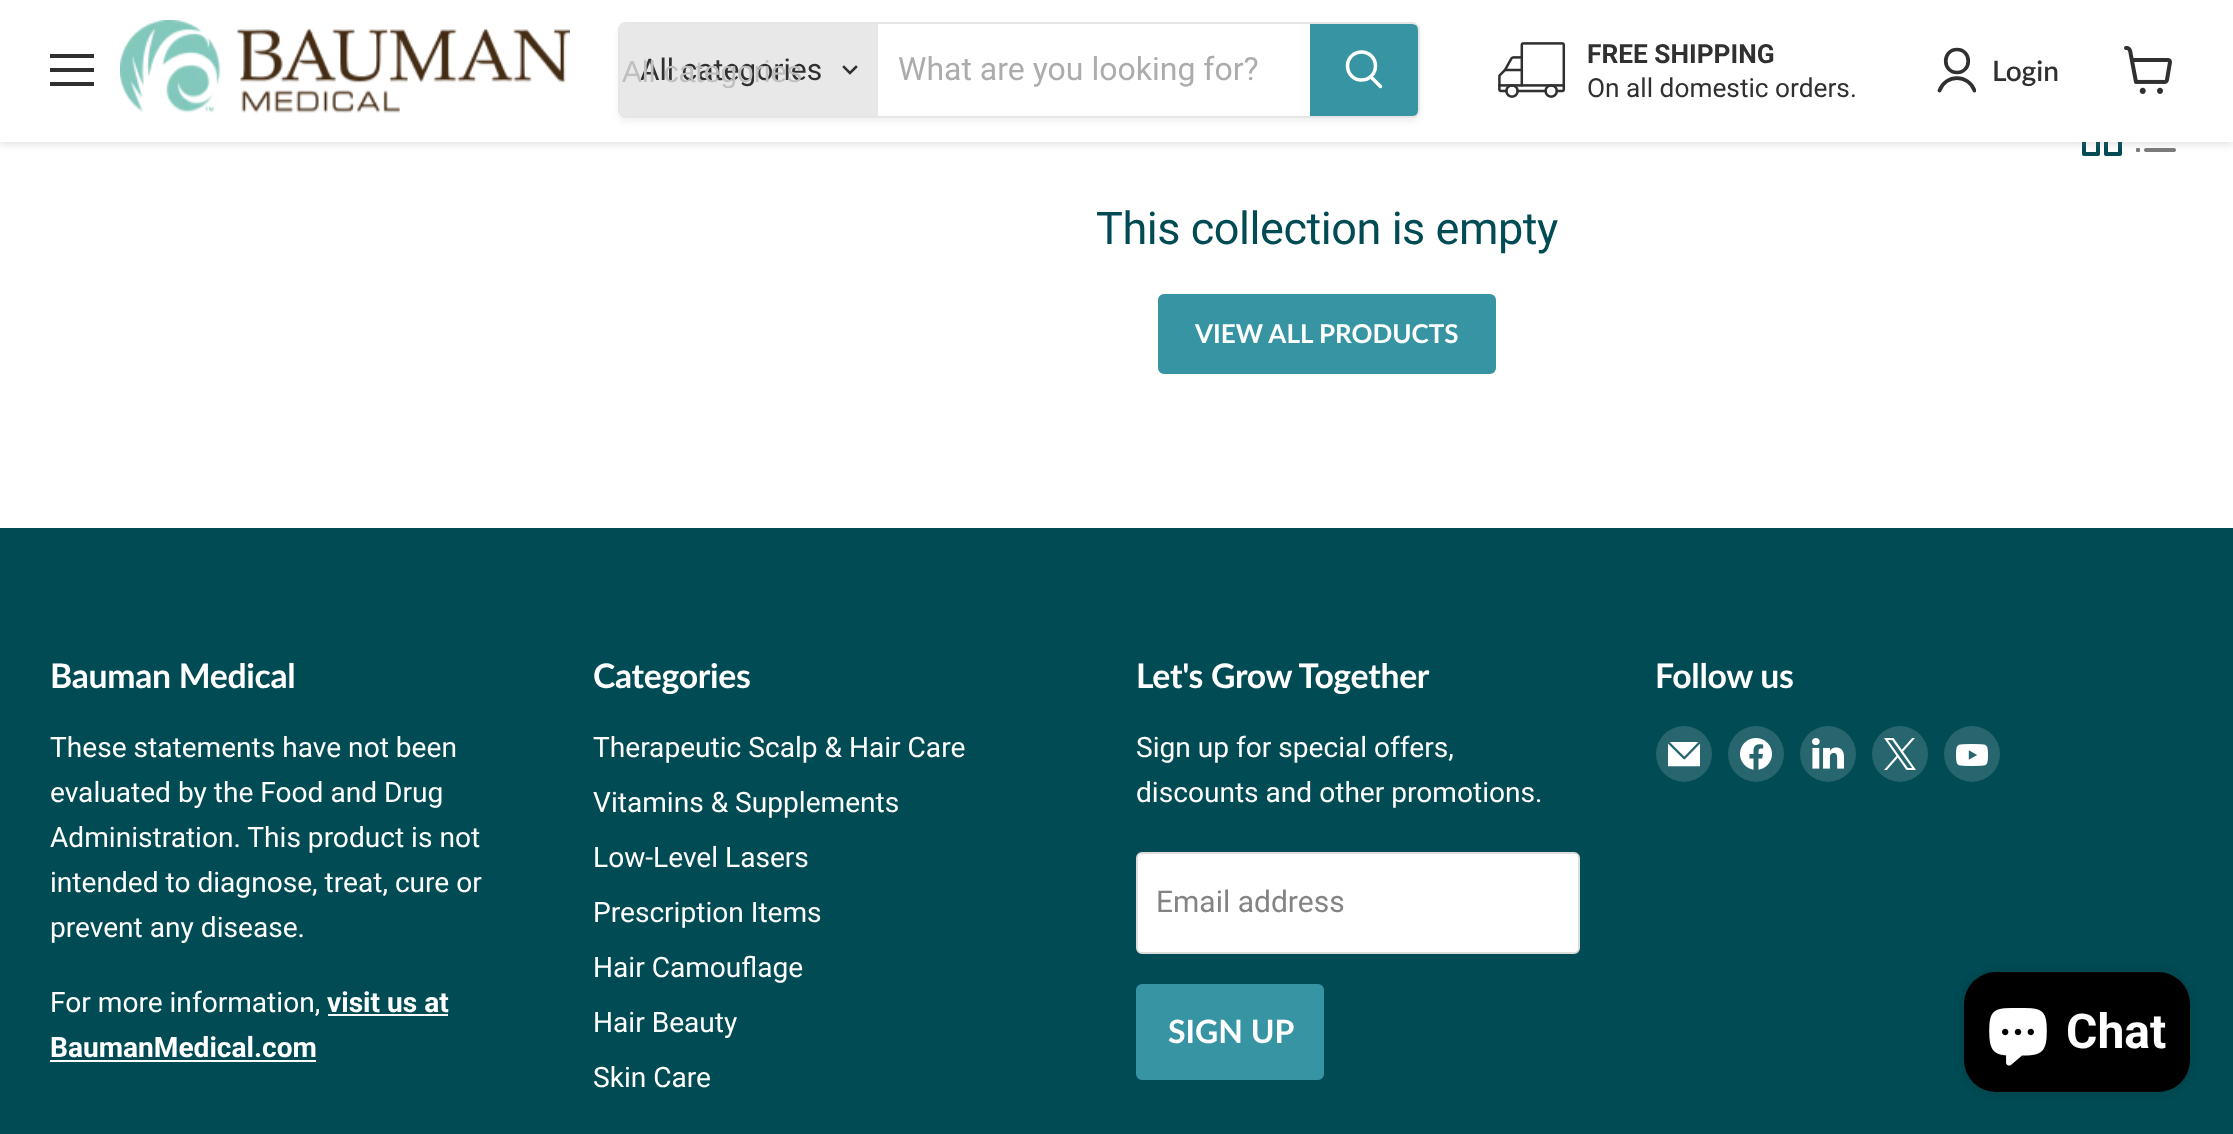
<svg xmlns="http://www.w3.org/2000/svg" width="2233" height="1134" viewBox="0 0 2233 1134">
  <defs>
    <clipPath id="clip1"><path d="M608 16H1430V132H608ZM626 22H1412C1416.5 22 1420 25.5 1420 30V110C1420 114.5 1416.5 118 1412 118H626C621.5 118 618 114.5 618 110V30C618 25.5 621.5 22 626 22Z" clip-rule="evenodd"/></clipPath>
    <clipPath id="clip2"><path d="M1936 46h40v48H1936z"/></clipPath>
    <clipPath id="clip3"><path d="M622 54h254v34H622z"/></clipPath>
  </defs>
  <rect width="100%" height="100%" fill="#fff"/>
  <image x="2082" y="142" width="40" height="14" href="img/4.png"/>
  <image x="2136" y="148" width="40" height="4" href="img/5.png"/>
  <path d="M0 2h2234v142H0z" fill="#80808040" filter="blur(4px)"/>
  <path d="M0 0h2233v142H0z" fill="#fff"/>
  <path d="M50 54h44v4H50z" fill="#303030"/>
  <path d="M50 68h44v4H50z" fill="#303030"/>
  <path d="M50 82h44v4H50z" fill="#303030"/>
  <image x="120" y="20" width="450" height="93" href="img/1.png"/>
  <g clip-path="url(#clip1)">
    <rect x="618" y="26" width="802" height="96" rx="8" fill="#8080801c" filter="blur(3px)"/>
  </g>
  <rect x="619" y="23" width="800" height="94" rx="7" fill="none" stroke="#80808033" stroke-width="2"/>
  <path d="M626 24H878V116H626C622.5 116 620 113.5 620 110V30C620 26.5 622.5 24 626 24Z" fill="#e8e8e8"/>
  <path d="M850 73L856 67M850 73L844 67" fill="none" stroke="#303030" stroke-width="2.5" stroke-linecap="square"/>
  <path d="M1311 25H1412C1415 25 1417 27 1417 30V110C1417 113 1415 115 1412 115H1311Z" fill="#3794a3" stroke="#3794a3" stroke-width="2"/>
  <path d="M1380.5 86.5L1371 77" fill="none" stroke="#fff" stroke-width="3.5" stroke-linecap="round"/>
  <circle cx="1361.5" cy="66" r="14" fill="none" stroke="#fff" stroke-width="3.5"/>
  <image x="1498" y="42" width="68" height="56" href="img/2.png"/>
  <path d="M1957 72.5C1972 72.5 1972 49.5 1957 49.5C1942 49.5 1942 72.5 1957 72.5Z" fill="none" stroke="#303030" stroke-width="3.7" stroke-linecap="round" stroke-linejoin="round"/>
  <g clip-path="url(#clip2)">
    <path d="M1974.5 90.5C1968.5 74 1945.5 74 1939.5 90.5" fill="none" stroke="#303030" stroke-width="3.7" stroke-linecap="round" stroke-linejoin="round"/>
  </g>
  <image x="2124" y="46" width="48" height="48" href="img/3.png"/>
  <rect x="1159" y="295" width="336" height="78" rx="5" fill="#3794a3" stroke="#3794a3" stroke-width="2"/>
  <path d="M0 528h2233v606H0z" fill="#014b54"/>
  <path d="M328 1014h120v2H328z" fill="#fff"/>
  <path d="M50 1060h266v2H50z" fill="#fff"/>
  <rect x="1137" y="853" width="442" height="100" rx="5" fill="#fff" stroke="#ddd" stroke-width="2"/>
  <rect x="1137" y="985" width="186" height="94" rx="5" fill="#3794a3" stroke="#3794a3" stroke-width="2"/>
  <circle cx="1684" cy="754" r="28" fill="#27666e"/>
  <image x="1668" y="742" width="32" height="25" href="img/6.png"/>
  <circle cx="1756" cy="754" r="28" fill="#27666e"/>
  <image x="1740" y="738" width="32" height="32" href="img/7.png"/>
  <circle cx="1828" cy="754" r="28" fill="#27666e"/>
  <image x="1812" y="738" width="32" height="31" href="img/8.png"/>
  <circle cx="1900" cy="754" r="28" fill="#27666e"/>
  <image x="1884" y="738" width="32" height="32" href="img/9.png"/>
  <circle cx="1972" cy="754" r="28" fill="#27666e"/>
  <image x="1956" y="744" width="32" height="22" href="img/10.png"/>
  <rect x="1964" y="972" width="226" height="120" rx="32" fill="#00000026" filter="blur(5px)"/>
  <rect x="1964" y="972" width="226" height="120" rx="32" fill="#000"/>
  <image x="1989" y="1008" width="58" height="58" href="img/11.png"/>
  <text x="640" y="80" font-family="Roboto" font-size="30" fill="#303030">All categories</text>
  <g clip-path="url(#clip3)">
    <text x="622" y="82" font-family="Liberation Sans" font-size="30" fill="#bfbfbf">All categories</text>
  </g>
  <text x="898" y="80" font-family="Roboto" font-size="32" fill="#acacac">What are you looking for?</text>
  <text x="1587" y="63" font-family="Roboto" font-size="26.25" font-weight="bold" fill="#303030">FREE SHIPPING</text>
  <text x="1587" y="97" font-family="Roboto" font-size="26.25" fill="#303030">On all domestic orders.</text>
  <text x="1992" y="81" font-family="Lato" font-size="28.1" font-weight="600" fill="#303030">Login</text>
  <text x="1096" y="244" font-family="Roboto" font-size="45" letter-spacing="-0.45" fill="#014b54">This collection is empty</text>
  <text x="1195" y="343" font-family="Lato" font-size="26" font-weight="bold" fill="#fff">VIEW ALL PRODUCTS</text>
  <text x="50" y="688" font-family="Lato" font-size="33.75" font-weight="bold" letter-spacing="-0.3" fill="#fff">Bauman Medical</text>
  <g font-family="Roboto" font-size="28.1" fill="#fff">
    <text x="50" y="757">These statements have not been</text>
    <text x="50" y="802">evaluated by the Food and Drug</text>
    <text x="50" y="847">Administration. This product is not</text>
    <text x="50" y="892">intended to diagnose, treat, cure or</text>
    <text x="50" y="937">prevent any disease.</text>
    <text x="50" y="1012">For more information,</text>
  </g>
  <g font-family="Roboto" font-size="28.1" font-weight="bold" fill="#fff">
    <text x="327" y="1012">visit us at</text>
    <text x="50" y="1057">BaumanMedical.com</text>
  </g>
  <text x="593" y="688" font-family="Lato" font-size="33.75" font-weight="bold" letter-spacing="-0.3" fill="#fff">Categories</text>
  <g font-family="Roboto" font-size="28.1" fill="#fff">
    <text x="593" y="757">Therapeutic Scalp &amp; Hair Care</text>
    <text x="593" y="812">Vitamins &amp; Supplements</text>
    <text x="593" y="867">Low-Level Lasers</text>
    <text x="593" y="922">Prescription Items</text>
    <text x="593" y="977">Hair Camouflage</text>
    <text x="593" y="1032">Hair Beauty</text>
    <text x="593" y="1087">Skin Care</text>
  </g>
  <text x="1136" y="688" font-family="Lato" font-size="33.75" font-weight="bold" letter-spacing="-0.3" fill="#fff">Let's Grow Together</text>
  <g font-family="Roboto" font-size="28.1" fill="#fff">
    <text x="1136" y="757">Sign up for special offers,</text>
    <text x="1136" y="802">discounts and other promotions.</text>
  </g>
  <text x="1156" y="912" font-family="Roboto" font-size="30" fill="#838383">Email address</text>
  <text x="1168" y="1043" font-family="Lato" font-size="32" font-weight="bold" fill="#fff">SIGN UP</text>
  <text x="1655" y="688" font-family="Lato" font-size="33.75" font-weight="bold" letter-spacing="-0.3" fill="#fff">Follow us</text>
  <text x="2066" y="1048" font-family="Roboto" font-size="48" font-weight="bold" fill="#fff">Chat</text>
</svg>
